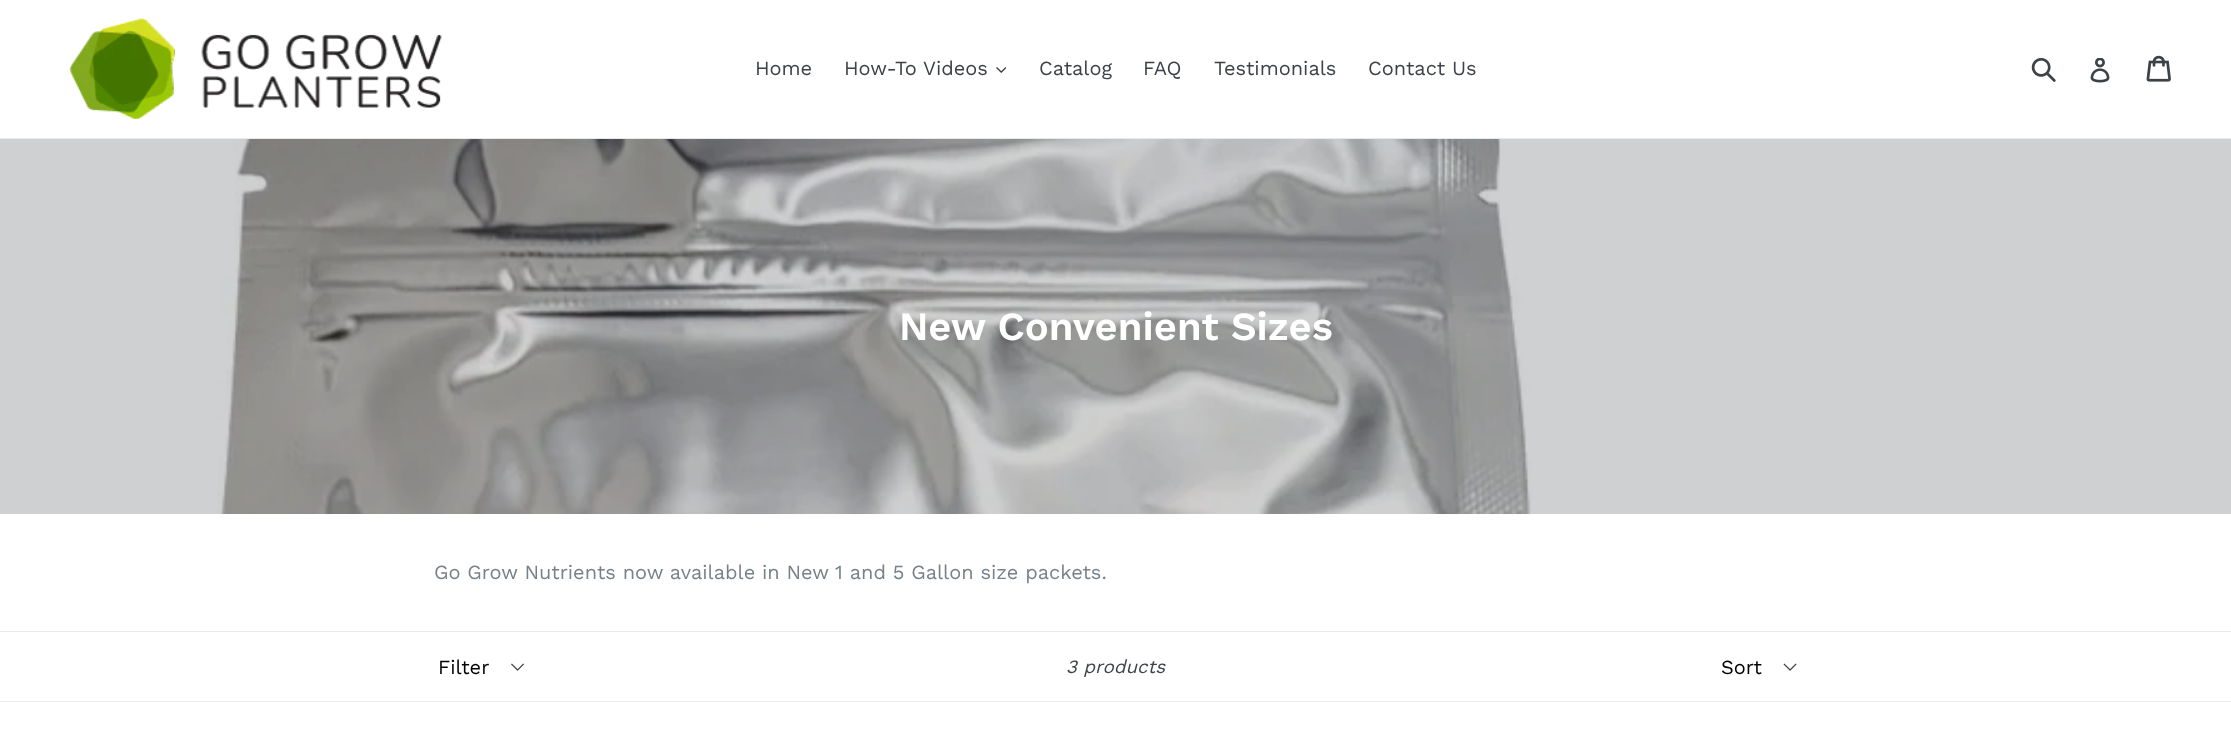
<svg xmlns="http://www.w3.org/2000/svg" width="2231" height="754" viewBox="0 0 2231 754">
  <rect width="100%" height="100%" fill="#fff"/>
  <path d="M0 139h2231v375H0z" fill="#cfd0d1"/>
  <path d="M0 138h2231v1H0z" fill="#e8e9eb"/>
  <image x="69" y="18" width="373" height="101" href="img/1.png"/>
  <image x="996" y="67" width="10" height="6" href="img/2.png"/>
  <image x="2031" y="58" width="25" height="24" href="img/3.png"/>
  <image x="2090" y="58" width="20" height="25" href="img/4.png"/>
  <image x="2146" y="55" width="25" height="27" href="img/5.png"/>
  <image x="217" y="139" width="1315" height="375" href="img/6.png"/>
  <path d="M0 631h2231v1H0z" fill="#e8e9eb"/>
  <path d="M0 701h2231v1H0z" fill="#e8e9eb"/>
  <image x="511" y="663" width="13" height="8" href="img/7.png"/>
  <image x="1783" y="663" width="14" height="8" href="img/8.png"/>
  <g font-family="Work Sans" font-size="20" fill="#3d4246">
    <text x="755" y="75">Home</text>
    <text x="844" y="75">How-To Videos</text>
    <text x="1039" y="75">Catalog</text>
    <text x="1143" y="75">FAQ</text>
    <text x="1214" y="75">Testimonials</text>
    <text x="1368" y="75">Contact Us</text>
  </g>
  <text x="899" y="340" font-family="Work Sans" font-size="40" font-weight="600" fill="#fff">New Convenient Sizes</text>
  <text x="434" y="579" font-family="Work Sans" font-size="20" fill="#788188">Go Grow Nutrients now available in New 1 and 5 Gallon size packets.</text>
  <text x="438" y="674" font-family="Work Sans" font-size="20" fill="#000">Filter</text>
  <text x="1066" y="673" font-family="Work Sans" font-size="18.75" font-style="italic" fill="#3d4246">3 products</text>
  <text x="1721" y="674" font-family="Work Sans" font-size="20" fill="#000">Sort</text>
</svg>
